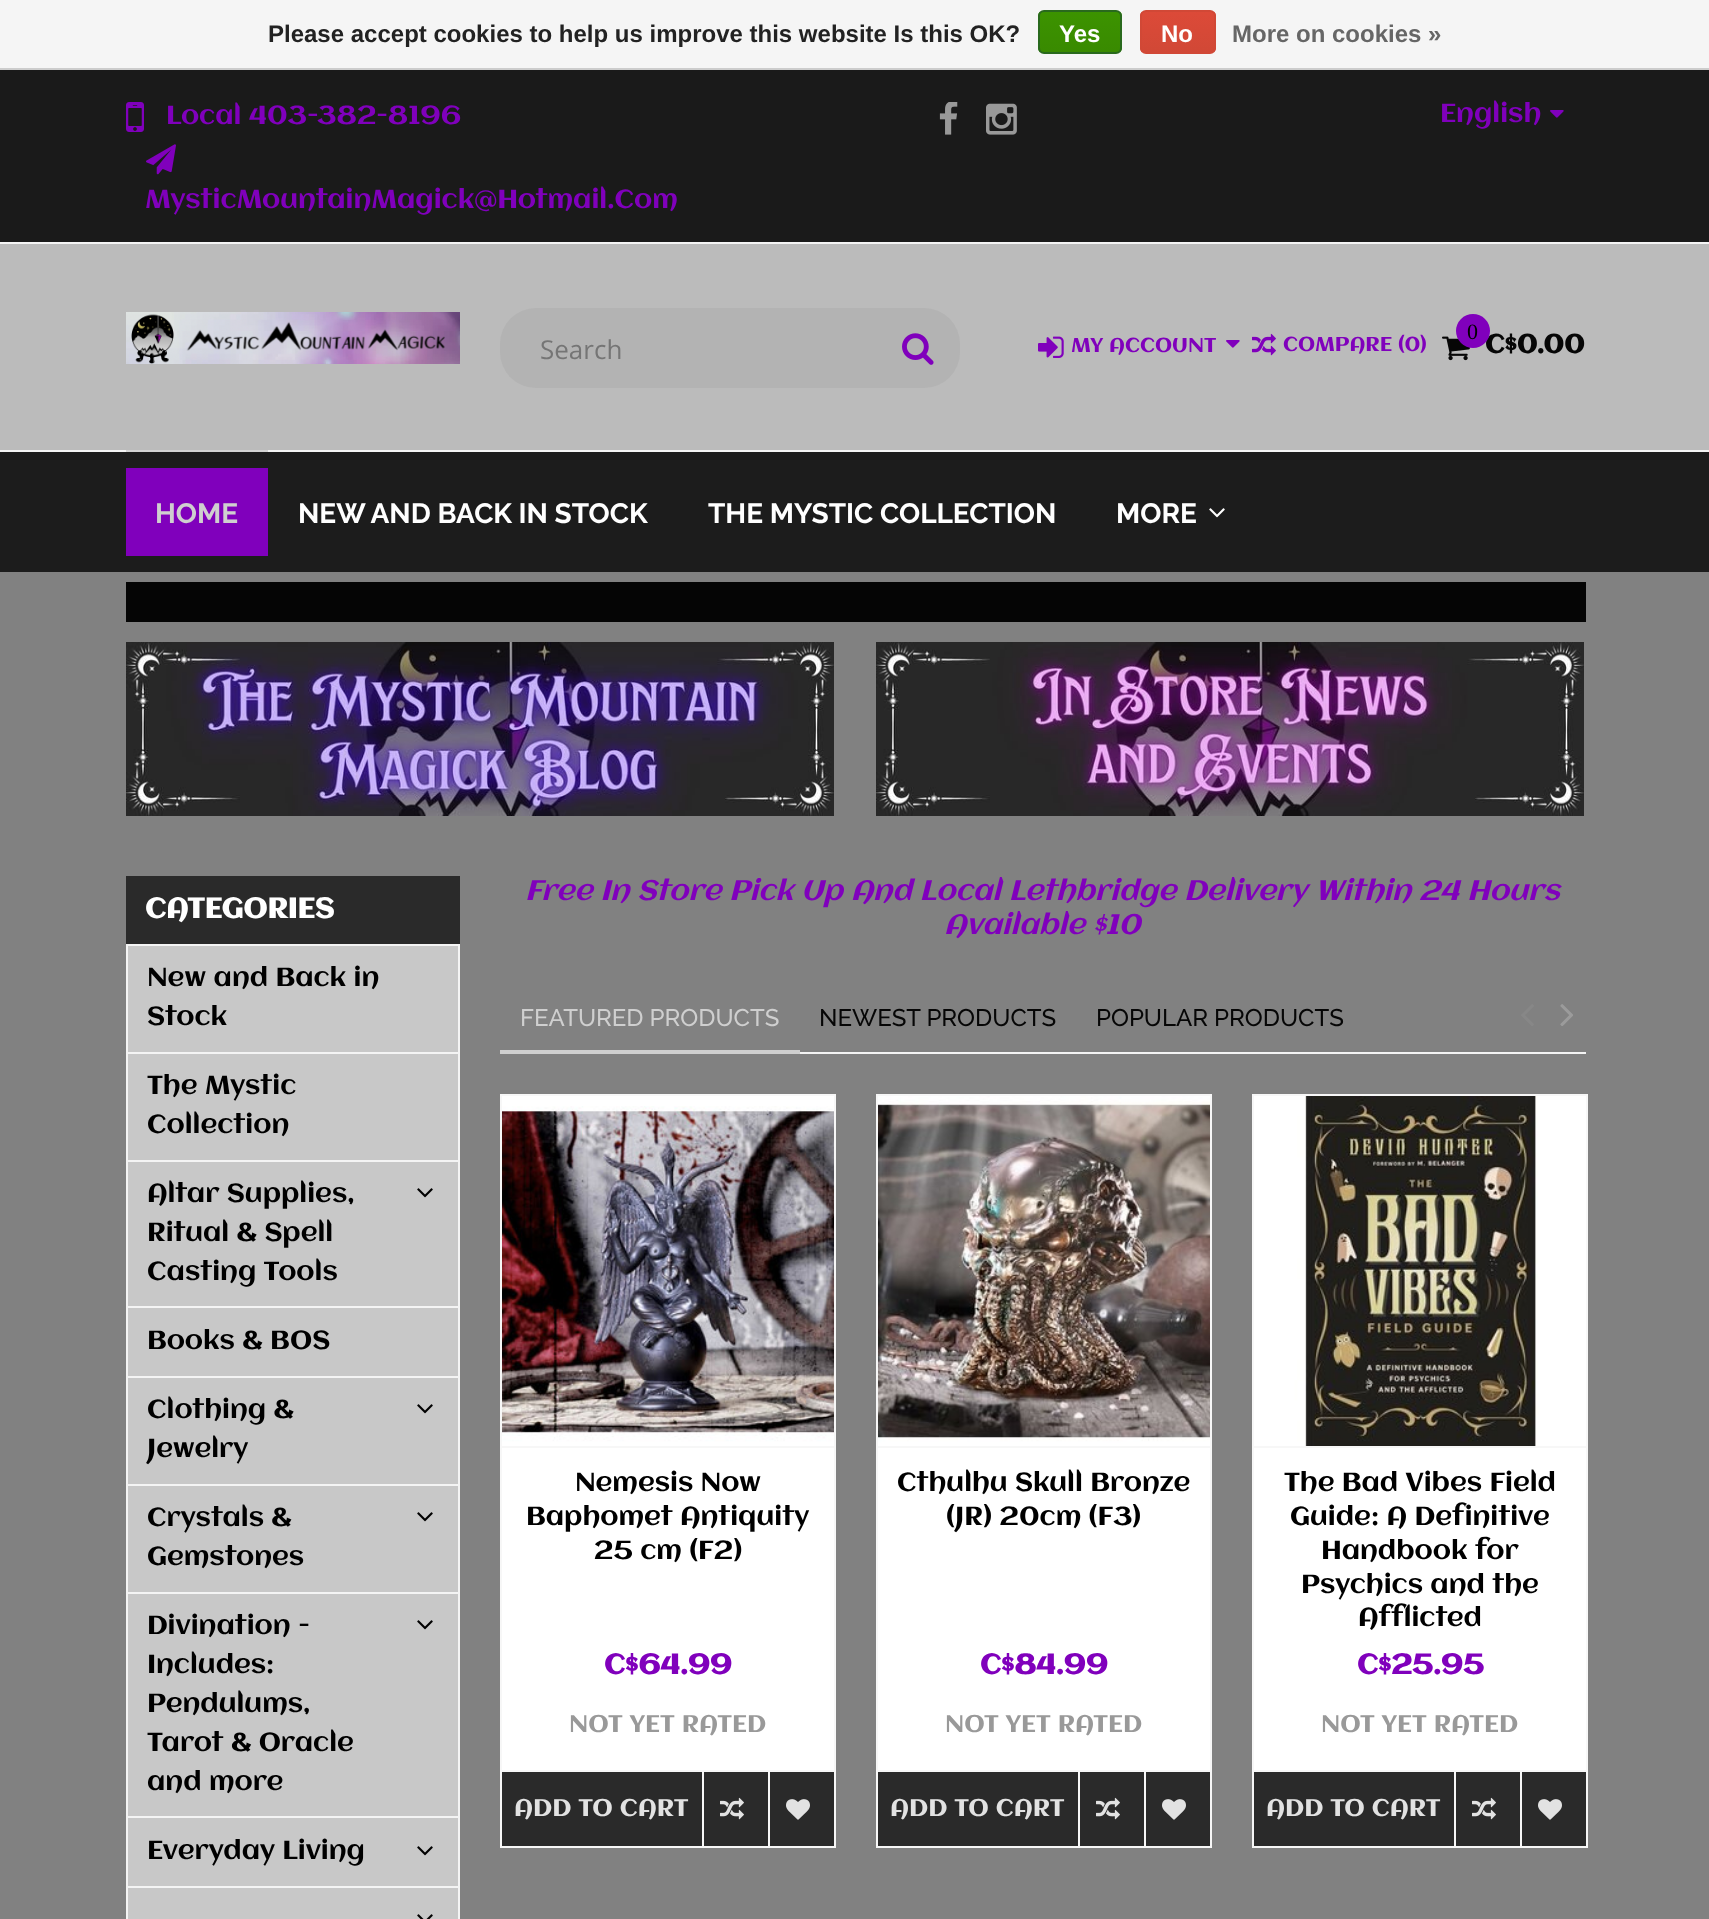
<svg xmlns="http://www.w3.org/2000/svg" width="1709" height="1919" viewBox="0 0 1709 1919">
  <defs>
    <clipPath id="clip1"><rect x="1038" y="10" width="84" height="44" rx="6"/></clipPath>
    <linearGradient id="g1" gradientUnits="userSpaceOnUse" x1="1080" y1="12" x2="1080" y2="52"><stop offset="0" stop-color="#3c9300"/><stop offset="1" stop-color="#398a00"/></linearGradient>
    <clipPath id="clip2"><rect x="1140" y="10" width="76" height="44" rx="6"/></clipPath>
    <linearGradient id="g2" gradientUnits="userSpaceOnUse" x1="1178" y1="12" x2="1178" y2="52"><stop offset="0" stop-color="#dc4a38"/><stop offset="1" stop-color="#d14836"/></linearGradient>
  </defs>
  <rect width="100%" height="100%" fill="#818181"/>
  <path d="M0 0h1709v68H0z" fill="#f5f5f5"/>
  <path d="M0 68h1709v2H0z" fill="#ccc"/>
  <g clip-path="url(#clip1)">
    <path d="M1038 12h84v40H1038z" fill="url(#g1)"/>
  </g>
  <rect x="1039" y="11" width="82" height="42" rx="5" fill="none" stroke="#29691d" stroke-width="2"/>
  <g clip-path="url(#clip2)">
    <path d="M1140 12h76v40H1140z" fill="url(#g2)"/>
  </g>
  <rect x="1141" y="11" width="74" height="42" rx="5" fill="none" stroke="#d14836" stroke-width="2"/>
  <path d="M0 244h1709v206H0z" fill="#bbb"/>
  <path d="M0 70h1709v172H0z" fill="#1a1a1a"/>
  <path d="M0 242h1709v2H0z" fill="#f4f4f4"/>
  <image x="126" y="102" width="18" height="30" href="img/1.png"/>
  <image x="146" y="144" width="30" height="31" href="img/2.png"/>
  <image x="939" y="102" width="19" height="33" href="img/3.png"/>
  <image x="986" y="103" width="31" height="32" href="img/4.png"/>
  <image x="1550" y="110" width="14" height="8" href="img/5.png"/>
  <image x="126" y="312" width="334" height="52" href="img/6.png"/>
  <rect x="500" y="308" width="460" height="80" rx="36" fill="#b3b3b3"/>
  <image x="902" y="333" width="32" height="32" href="img/7.png"/>
  <image x="1038" y="336" width="26" height="22" href="img/8.png"/>
  <image x="1226" y="340" width="14" height="8" href="img/9.png"/>
  <image x="1252" y="333" width="24" height="23" href="img/10.png"/>
  <image x="1442" y="336" width="28" height="25" href="img/11.png"/>
  <path d="M0 452h1709v120H0z" fill="#1c1c1c"/>
  <path d="M0 450h1709v2H0z" fill="#f4f4f4"/>
  <path d="M126 468h142v88H126z" fill="#8000bc"/>
  <path d="M126 450h142v2H126z" fill="#d4d4d4"/>
  <image x="1209" y="508" width="16" height="10" href="img/12.png"/>
  <path d="M126 582h1460v40H126z" fill="#050505"/>
  <image x="126" y="642" width="708" height="174" href="img/13.png"/>
  <image x="876" y="642" width="708" height="174" href="img/14.png"/>
  <path d="M126 876h334v68H126z" fill="#2a2a2a"/>
  <path d="M127 945h332v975H127z" fill="#c8c8c8" stroke="#f4f4f4" stroke-width="2"/>
  <path d="M128 1052h330v2H128z" fill="#f4f4f4"/>
  <path d="M128 1160h330v2H128z" fill="#f4f4f4"/>
  <path d="M128 1306h330v2H128z" fill="#f4f4f4"/>
  <image x="417" y="1188" width="16" height="10" href="img/15.png"/>
  <path d="M128 1376h330v2H128z" fill="#f4f4f4"/>
  <path d="M128 1484h330v2H128z" fill="#f4f4f4"/>
  <image x="417" y="1404" width="16" height="10" href="img/15.png"/>
  <path d="M128 1592h330v2H128z" fill="#f4f4f4"/>
  <image x="417" y="1512" width="16" height="10" href="img/15.png"/>
  <path d="M128 1816h330v2H128z" fill="#f4f4f4"/>
  <image x="417" y="1620" width="16" height="10" href="img/15.png"/>
  <path d="M128 1886h330v2H128z" fill="#f4f4f4"/>
  <image x="417" y="1846" width="16" height="10" href="img/15.png"/>
  <image x="417" y="1914" width="16" height="5" href="img/16.png"/>
  <path d="M800 1052h786v2H800z" fill="#f4f4f4"/>
  <path d="M500 1050h300v4H500z" fill="#cfcfcf"/>
  <image x="1521" y="1004" width="13" height="22" href="img/17.png"/>
  <image x="1560" y="1004" width="13" height="22" href="img/18.png"/>
  <path d="M502 1448h332v322H502z" fill="#fff"/>
  <path d="M500 1094h336v2H500z" fill="#f7f7f7"/>
  <path d="M834 1094h2v352H834z" fill="#f7f7f7"/>
  <path d="M500 1094h2v352H500z" fill="#f7f7f7"/>
  <image x="502" y="1096" width="332" height="350" href="img/19.png"/>
  <path d="M501 1447h334v400H501z" fill="none" stroke="#f7f7f7" stroke-width="2"/>
  <path d="M502 1772h332v74H502z" fill="#2a2a2a"/>
  <path d="M502 1770h332v2H502z" fill="#f7f7f7"/>
  <path d="M702 1772h2v74H702z" fill="#f7f7f7"/>
  <image x="720" y="1797" width="24" height="23" href="img/20.png"/>
  <path d="M768 1772h2v74H768z" fill="#f7f7f7"/>
  <image x="786" y="1799" width="24" height="21" href="img/21.png"/>
  <path d="M878 1448h332v322H878z" fill="#fff"/>
  <path d="M876 1094h336v2H876z" fill="#f7f7f7"/>
  <path d="M1210 1094h2v352H1210z" fill="#f7f7f7"/>
  <path d="M876 1094h2v352H876z" fill="#f7f7f7"/>
  <image x="878" y="1096" width="332" height="350" href="img/22.png"/>
  <path d="M877 1447h334v400H877z" fill="none" stroke="#f7f7f7" stroke-width="2"/>
  <path d="M878 1772h332v74H878z" fill="#2a2a2a"/>
  <path d="M878 1770h332v2H878z" fill="#f7f7f7"/>
  <path d="M1078 1772h2v74H1078z" fill="#f7f7f7"/>
  <image x="1096" y="1797" width="24" height="23" href="img/20.png"/>
  <path d="M1144 1772h2v74H1144z" fill="#f7f7f7"/>
  <image x="1162" y="1799" width="24" height="21" href="img/21.png"/>
  <path d="M1254 1448h332v322H1254z" fill="#fff"/>
  <path d="M1252 1094h336v2H1252z" fill="#f7f7f7"/>
  <path d="M1586 1094h2v352H1586z" fill="#f7f7f7"/>
  <path d="M1252 1094h2v352H1252z" fill="#f7f7f7"/>
  <image x="1254" y="1096" width="332" height="350" href="img/23.png"/>
  <path d="M1253 1447h334v400H1253z" fill="none" stroke="#f7f7f7" stroke-width="2"/>
  <path d="M1254 1772h332v74H1254z" fill="#2a2a2a"/>
  <path d="M1254 1770h332v2H1254z" fill="#f7f7f7"/>
  <path d="M1454 1772h2v74H1454z" fill="#f7f7f7"/>
  <image x="1472" y="1797" width="24" height="23" href="img/20.png"/>
  <path d="M1520 1772h2v74H1520z" fill="#f7f7f7"/>
  <image x="1538" y="1799" width="24" height="21" href="img/21.png"/>
  <text x="268" y="42" font-family="Liberation Sans" font-size="24" font-weight="bold" fill="#222">Please accept cookies to help us improve this website Is this OK?</text>
  <g font-family="Liberation Sans" font-size="24" font-weight="bold" fill="#fff">
    <text x="1059" y="42">Yes</text>
    <text x="1161" y="42">No</text>
  </g>
  <text x="1232" y="42" font-family="Liberation Sans" font-size="24" font-weight="bold" fill="#666">More on cookies »</text>
  <g font-family="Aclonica" font-size="26" fill="#8000bc">
    <text x="166" y="124">Local 403-382-8196</text>
    <text x="145" y="208">MysticMountainMagick@Hotmail.Com</text>
    <text x="1440" y="122">English</text>
  </g>
  <text x="540" y="359" font-family="Open Sans" font-size="26" fill="#757575">Search</text>
  <g font-family="Aclonica" font-size="20" fill="#8000bc">
    <text x="1071" y="352">MY ACCOUNT</text>
    <text x="1283" y="351">COMPARE (0)</text>
  </g>
  <text x="1485" y="353" font-family="Aclonica" font-size="26" font-weight="bold" fill="#060606">C$0.00</text>
  <circle cx="1473" cy="331" r="17" fill="#8000bc"/>
  <text x="1467" y="339" font-family="Liberation Serif" font-size="22" fill="#000">0</text>
  <text x="155" y="523" font-family="Raleway" font-size="28" font-weight="bold" fill="#cfcfcf">HOME</text>
  <g font-family="Raleway" font-size="28" font-weight="bold" fill="#fff">
    <text x="298" y="523">NEW AND BACK IN STOCK</text>
    <text x="708" y="523">THE MYSTIC COLLECTION</text>
    <text x="1116" y="523">MORE</text>
  </g>
  <text x="145" y="918" font-family="Aclonica" font-size="28" font-weight="bold" fill="#fff">CATEGORIES</text>
  <g font-family="Aclonica" font-size="26" fill="#000">
    <text x="147" y="986">New and Back in</text>
    <text x="147" y="1025">Stock</text>
    <text x="147" y="1094">The Mystic</text>
    <text x="147" y="1133">Collection</text>
    <text x="147" y="1202">Altar Supplies,</text>
    <text x="147" y="1241">Ritual &amp; Spell</text>
    <text x="147" y="1280">Casting Tools</text>
    <text x="147" y="1349">Books &amp; BOS</text>
    <text x="147" y="1418">Clothing &amp;</text>
    <text x="147" y="1457">Jewelry</text>
    <text x="147" y="1526">Crystals &amp;</text>
    <text x="147" y="1565">Gemstones</text>
    <text x="147" y="1634">Divination -</text>
    <text x="147" y="1673">Includes:</text>
    <text x="147" y="1712">Pendulums,</text>
    <text x="147" y="1751">Tarot &amp; Oracle</text>
    <text x="147" y="1790">and more</text>
    <text x="147" y="1859">Everyday Living</text>
  </g>
  <g font-family="Aclonica" font-size="28" font-style="italic" fill="#8000bc">
    <text x="525" y="900">Free In Store Pick Up And Local Lethbridge Delivery Within 24 Hours</text>
    <text x="944" y="934">Available $10</text>
  </g>
  <text x="520" y="1026" font-family="Raleway" font-size="24" font-weight="500" fill="#cfcfcf">FEATURED PRODUCTS</text>
  <g font-family="Raleway" font-size="24" font-weight="500" fill="#060606">
    <text x="819" y="1026">NEWEST PRODUCTS</text>
    <text x="1096" y="1026">POPULAR PRODUCTS</text>
  </g>
  <g font-family="Aclonica" font-size="26" fill="#000">
    <text x="575" y="1491">Nemesis Now</text>
    <text x="526" y="1525">Baphomet Antiquity</text>
    <text x="594" y="1559">25 cm (F2)</text>
  </g>
  <text x="604" y="1674" font-family="Aclonica" font-size="28" font-weight="bold" fill="#8000bc">C$64.99</text>
  <text x="569" y="1732" font-family="Aclonica" font-size="24" fill="#999">NOT YET RATED</text>
  <text x="514" y="1816" font-family="Aclonica" font-size="24" fill="#e2e2e2">ADD TO CART</text>
  <g font-family="Aclonica" font-size="26" fill="#000">
    <text x="897" y="1491">Cthulhu Skull Bronze</text>
    <text x="946" y="1525">(JR) 20cm (F3)</text>
  </g>
  <text x="980" y="1674" font-family="Aclonica" font-size="28" font-weight="bold" fill="#8000bc">C$84.99</text>
  <text x="945" y="1732" font-family="Aclonica" font-size="24" fill="#999">NOT YET RATED</text>
  <text x="890" y="1816" font-family="Aclonica" font-size="24" fill="#e2e2e2">ADD TO CART</text>
  <g font-family="Aclonica" font-size="26" fill="#000">
    <text x="1284" y="1491">The Bad Vibes Field</text>
    <text x="1290" y="1525">Guide: A Definitive</text>
    <text x="1321" y="1559">Handbook for</text>
    <text x="1301" y="1593">Psychics and the</text>
    <text x="1358" y="1626">Afflicted</text>
  </g>
  <text x="1357" y="1674" font-family="Aclonica" font-size="28" font-weight="bold" fill="#8000bc">C$25.95</text>
  <text x="1321" y="1732" font-family="Aclonica" font-size="24" fill="#999">NOT YET RATED</text>
  <text x="1266" y="1816" font-family="Aclonica" font-size="24" fill="#e2e2e2">ADD TO CART</text>
</svg>
